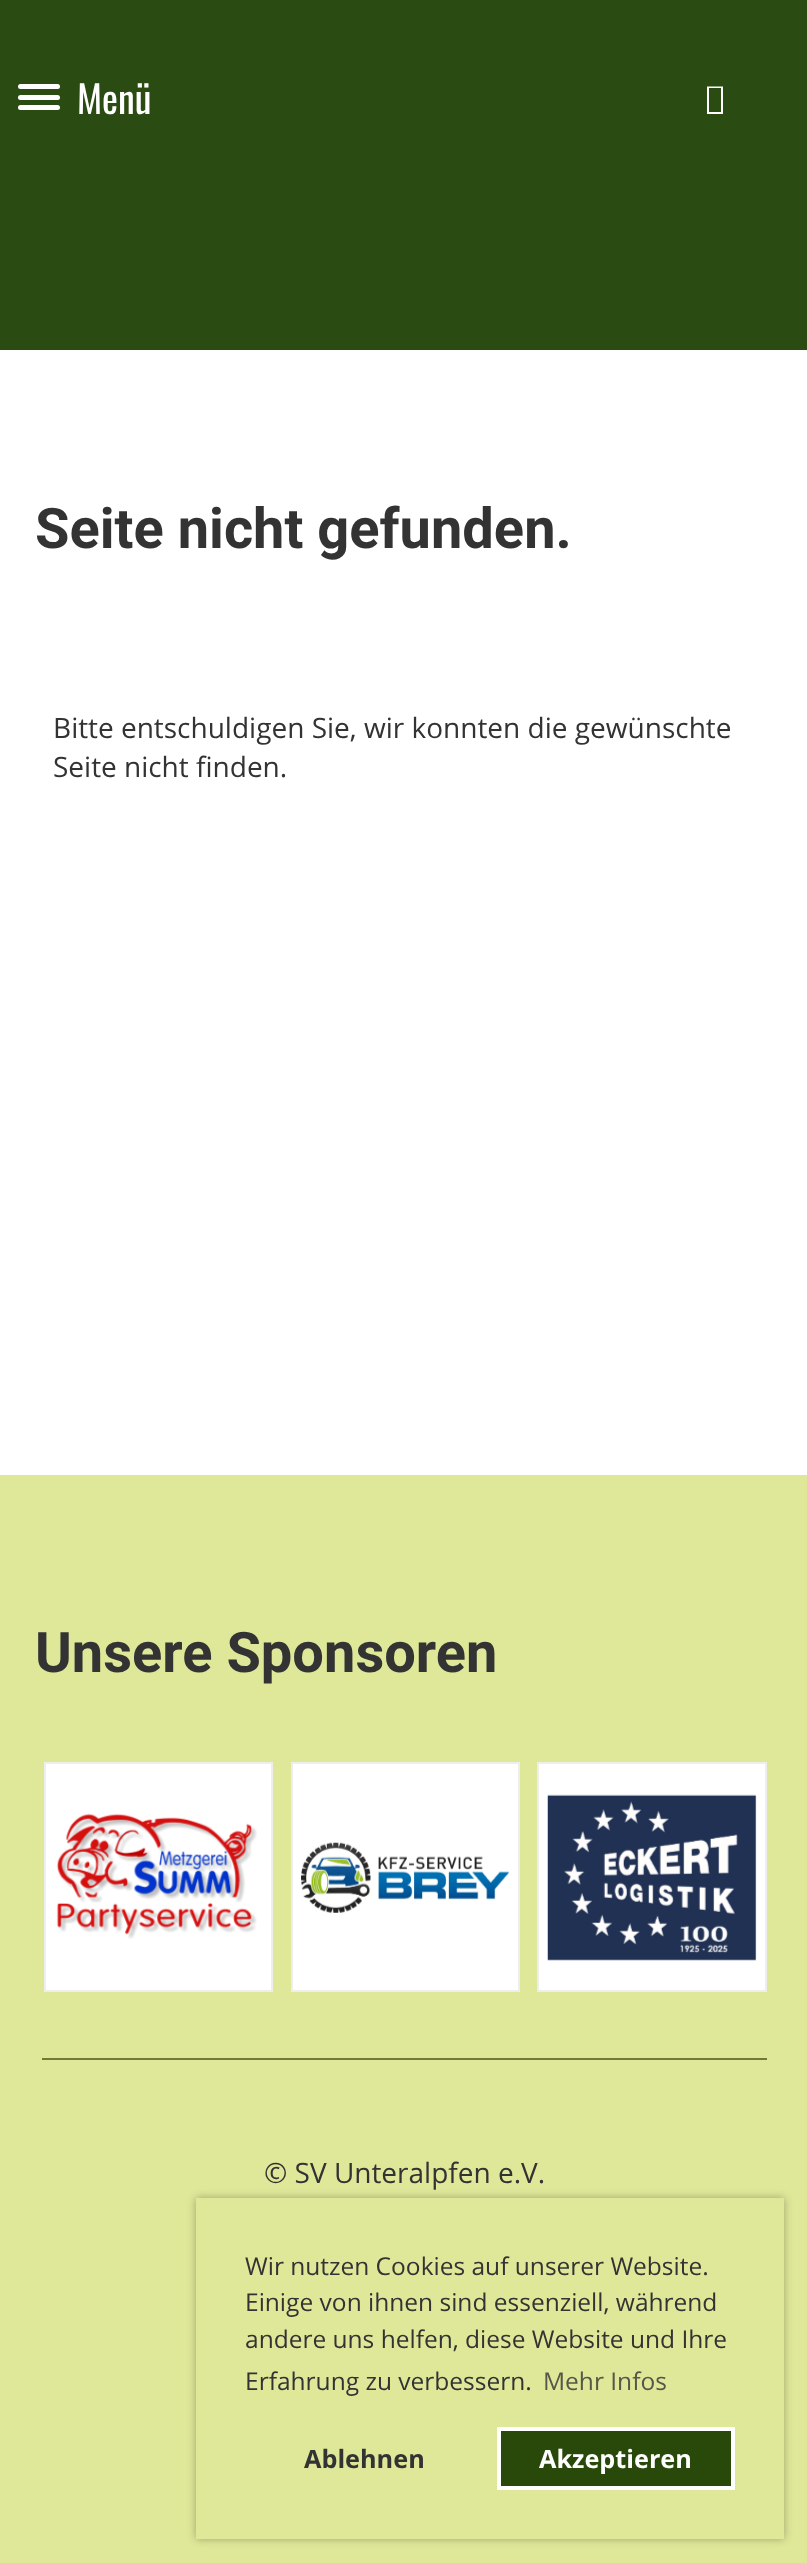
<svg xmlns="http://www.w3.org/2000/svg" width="807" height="2563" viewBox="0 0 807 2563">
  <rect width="100%" height="100%" fill="#fff"/>
  <path d="M0 0h807v350H0z" fill="#2a4b11"/>
  <rect x="18" y="84" width="42" height="5" rx="2.5" fill="#fff"/>
  <rect x="18" y="95" width="42" height="5" rx="2.5" fill="#fff"/>
  <rect x="18" y="105" width="42" height="5" rx="2.5" fill="#fff"/>
  <path d="M707 114V86.5H723V114ZM709 112H721V88H709Z" fill="#fff"/>
  <path d="M0 1475h807v1088H0z" fill="#dfe899"/>
  <path d="M45 1763h227v228H45z" fill="#fff" stroke="#eee" stroke-width="2"/>
  <image x="56" y="1813" width="201" height="126" href="img/1.png"/>
  <path d="M292 1763h227v228H292z" fill="#fff" stroke="#eee" stroke-width="2"/>
  <image x="301" y="1842" width="209" height="71" href="img/2.png"/>
  <path d="M538 1763h228v228H538z" fill="#fff" stroke="#eee" stroke-width="2"/>
  <image x="547" y="1794" width="210" height="167" href="img/3.png"/>
  <path d="M42 2058h725v2H42z" fill="#707a35"/>
  <path d="M196 2198h588v341H196z" fill="#0000004d" filter="blur(4.5px)"/>
  <path d="M196 2198h588v341H196z" fill="#dfe899"/>
  <path d="M499 2429h234v59H499z" fill="#29490b" stroke="#fff" stroke-width="4"/>
  <text x="77" y="114" font-family="Oswald" font-size="38" fill="#fff">Menü</text>
  <text x="35" y="548" font-family="Roboto" font-size="56" font-weight="bold" fill="#333">Seite nicht gefunden.</text>
  <g font-family="Open Sans" font-size="28" fill="#333">
    <text x="53" y="738">Bitte entschuldigen Sie, wir konnten die gewünschte</text>
    <text x="53" y="777">Seite nicht finden.</text>
  </g>
  <text x="35" y="1672" font-family="Roboto" font-size="56" font-weight="bold" fill="#333">Unsere Sponsoren</text>
  <text x="264" y="2183" font-family="Open Sans" font-size="28" fill="#333">© SV Unteralpfen e.V.</text>
  <g font-family="Open Sans" font-size="24.5" fill="#333">
    <text x="245" y="2275">Wir nutzen Cookies auf unserer Website.</text>
    <text x="245" y="2311">Einige von ihnen sind essenziell, während</text>
    <text x="245" y="2348">andere uns helfen, diese Website und Ihre</text>
    <text x="245" y="2390">Erfahrung zu verbessern.</text>
  </g>
  <text x="543" y="2390" font-family="Open Sans" font-size="24.5" fill="#555747">Mehr Infos</text>
  <text x="304" y="2468" font-family="Open Sans" font-size="25.25" font-weight="bold" fill="#333">Ablehnen</text>
  <text x="539" y="2468" font-family="Open Sans" font-size="25.25" font-weight="bold" fill="#fff">Akzeptieren</text>
</svg>
